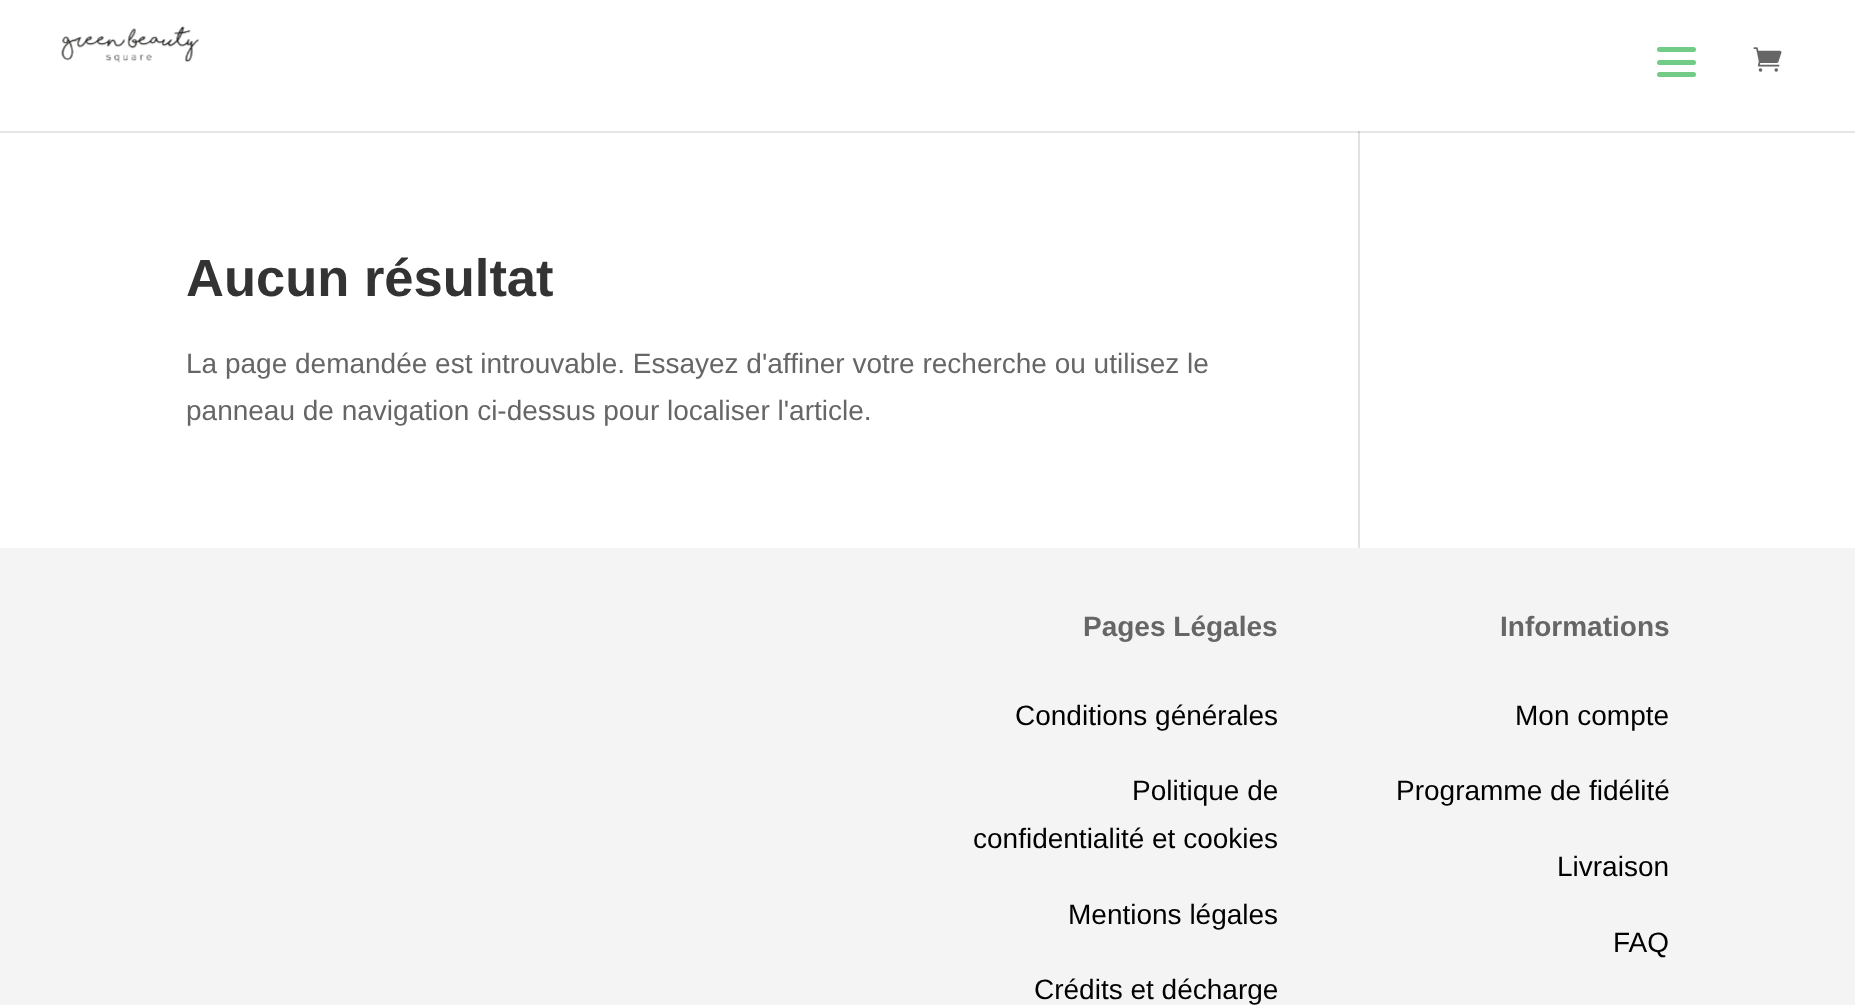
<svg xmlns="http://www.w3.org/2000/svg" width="1855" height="1005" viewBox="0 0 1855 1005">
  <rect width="100%" height="100%" fill="#fff"/>
  <path d="M0 131h1855v2H0z" fill="#e6e6e6"/>
  <image x="61" y="26" width="138" height="37" href="img/1.png"/>
  <rect x="1657" y="72" width="39" height="5" rx="2.5" fill="#72cc85"/>
  <rect x="1657" y="47" width="39" height="5" rx="2.5" fill="#72cc85"/>
  <rect x="1657" y="60" width="39" height="5" rx="2.5" fill="#72cc85"/>
  <image x="1753" y="47" width="29" height="25" href="img/2.png"/>
  <path d="M1358 131h2v417H1358z" fill="#e2e2e2"/>
  <path d="M1358 131h2v2H1358z" fill="#cbcbcb"/>
  <path d="M0 548h1855v457H0z" fill="#f4f4f4"/>
  <text x="186" y="296" font-family="Liberation Sans" font-size="52.5" font-weight="bold" fill="#333">Aucun résultat</text>
  <g font-family="Liberation Sans" font-size="28" fill="#666">
    <text x="186" y="373">La page demandée est introuvable. Essayez d'affiner votre recherche ou utilisez le</text>
    <text x="186" y="420">panneau de navigation ci-dessus pour localiser l'article.</text>
  </g>
  <text x="1083" y="636" font-family="Liberation Sans" font-size="28" font-weight="bold" fill="#666">Pages Légales</text>
  <g font-family="Liberation Sans" font-size="28" fill="#000">
    <text x="1015" y="725">Conditions générales</text>
    <text x="1132" y="800">Politique de</text>
    <text x="973" y="848">confidentialité et cookies</text>
    <text x="1068" y="924">Mentions légales</text>
    <text x="1034" y="999">Crédits et décharge</text>
  </g>
  <text x="1500" y="636" font-family="Liberation Sans" font-size="28" font-weight="bold" fill="#666">Informations</text>
  <g font-family="Liberation Sans" font-size="28" fill="#000">
    <text x="1515" y="725">Mon compte</text>
    <text x="1396" y="800">Programme de fidélité</text>
    <text x="1557" y="876">Livraison</text>
    <text x="1613" y="952">FAQ</text>
  </g>
</svg>
